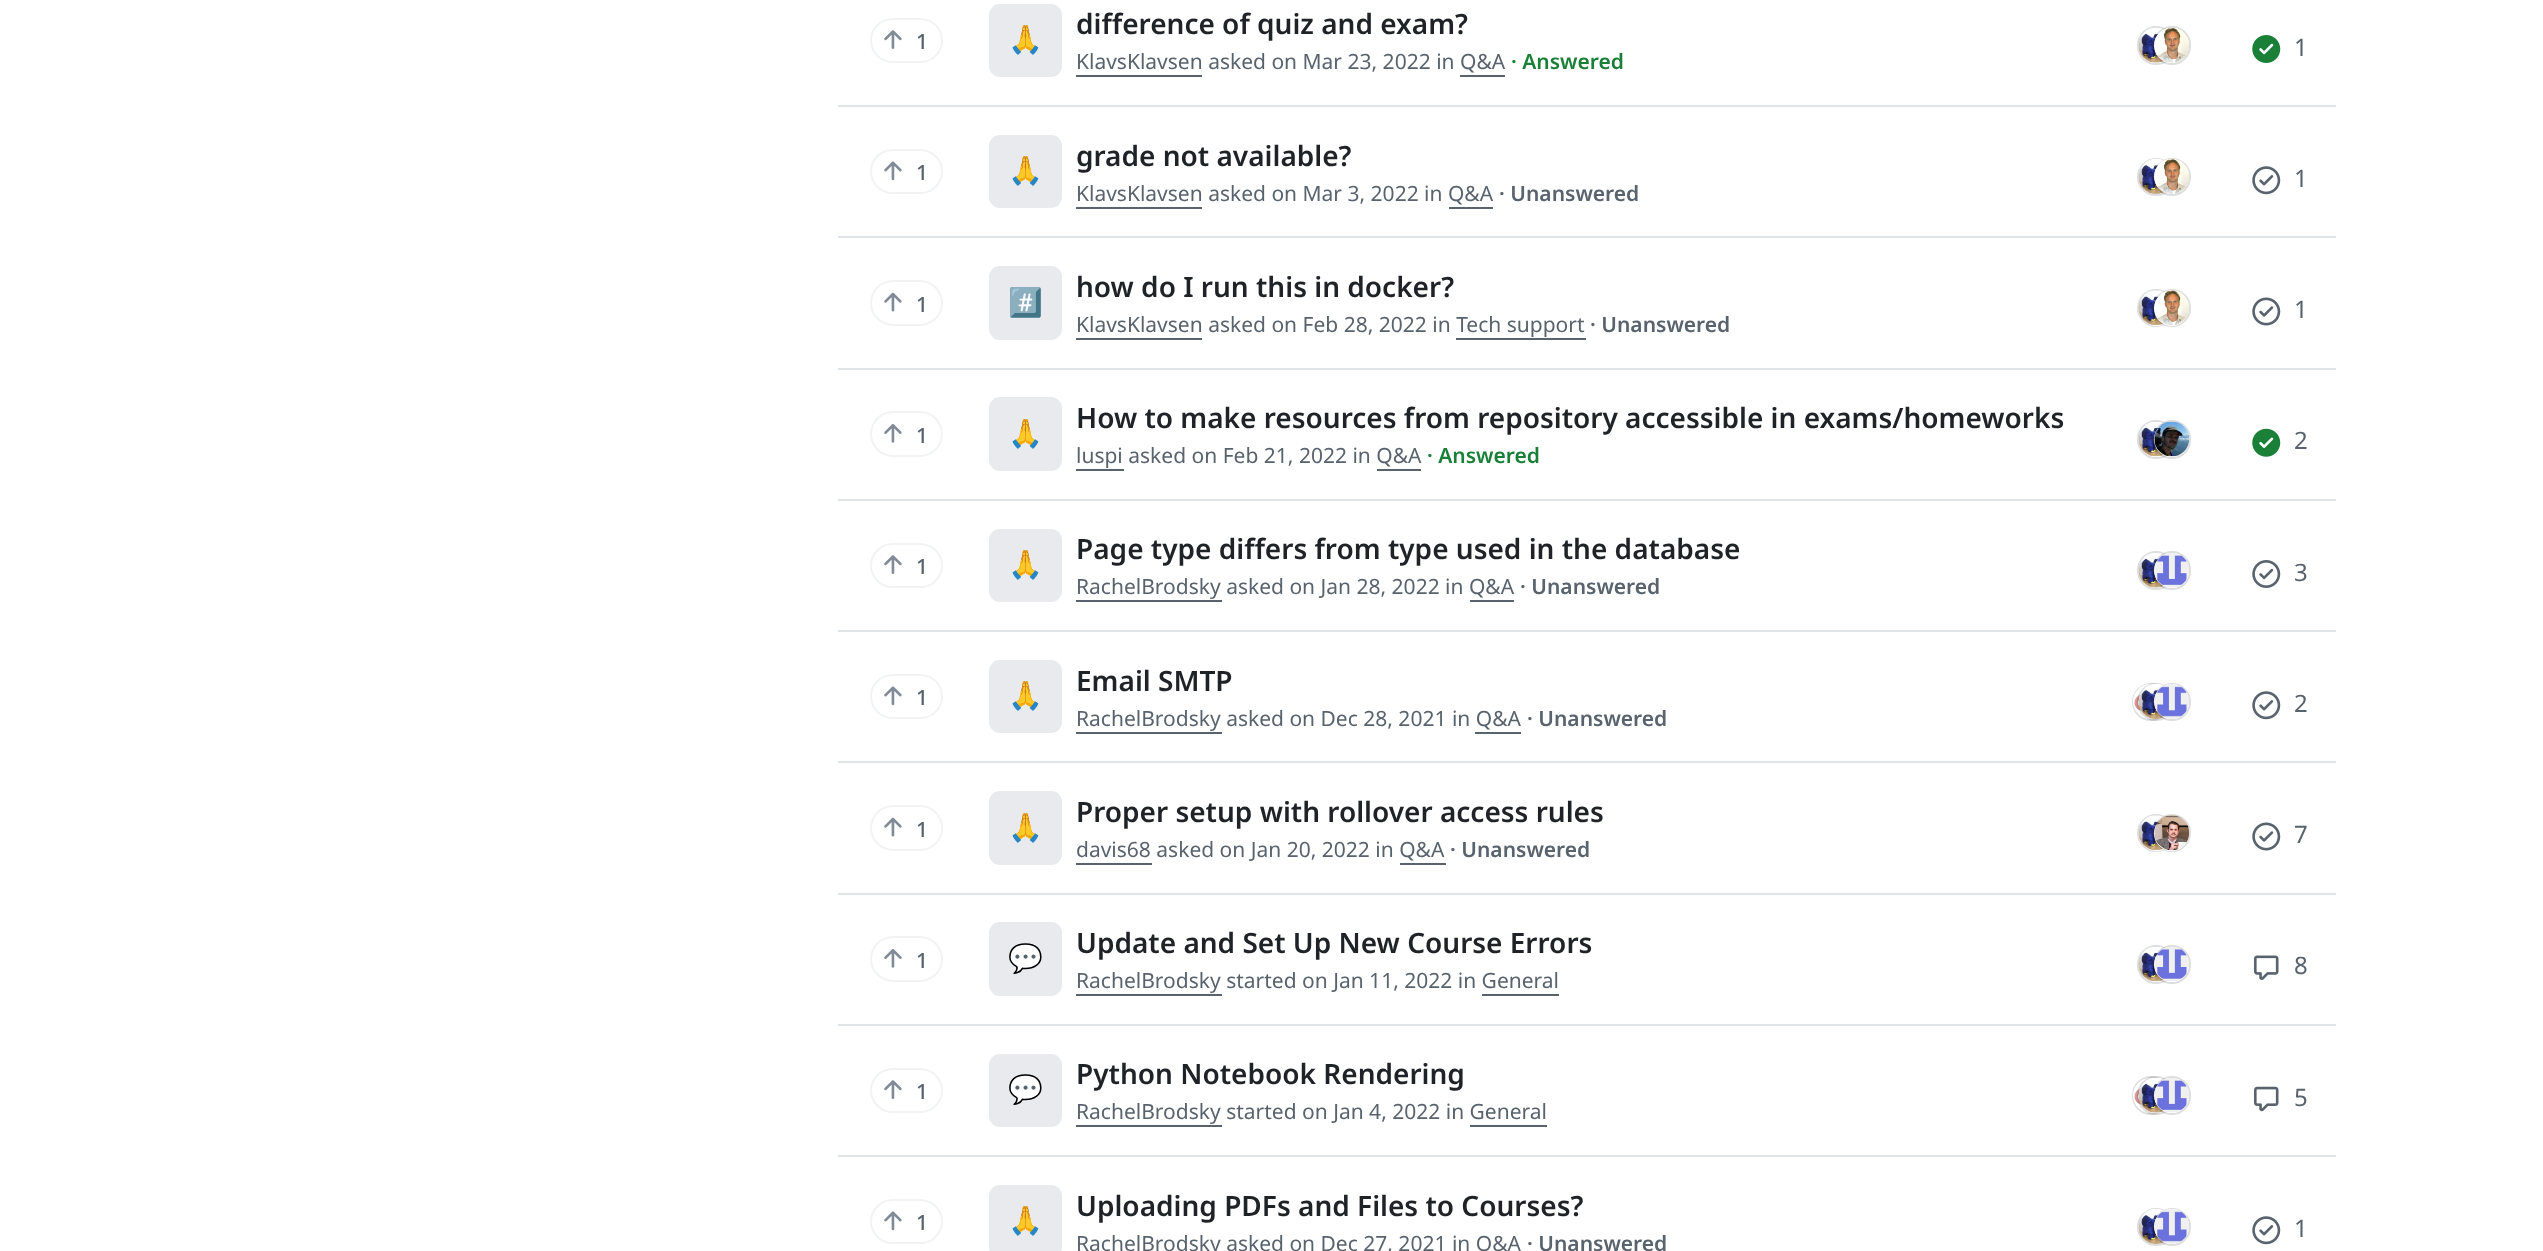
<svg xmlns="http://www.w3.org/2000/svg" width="2543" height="1251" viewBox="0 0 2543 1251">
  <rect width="100%" height="100%" fill="#fff"/>
  <rect x="871" y="19" width="71" height="43" rx="21.5" fill="none" stroke="#f2f3f5" stroke-width="2"/>
  <image x="884" y="30" width="18" height="19" href="img/1.png"/>
  <rect x="989" y="4" width="73" height="73" rx="11" fill="#e8eaed"/>
  <path d="M1076 75h126v2H1076z" fill="#59636e"/>
  <path d="M1460 75h45v2H1460z" fill="#59636e"/>
  <rect x="2138" y="27" width="36" height="37" rx="18" fill="none" stroke="#dddedf" stroke-width="2"/>
  <circle cx="2156.5" cy="45.5" r="17.5" fill="#fff"/>
  <image x="2138" y="28" width="27" height="35" href="img/2.png"/>
  <rect x="2154" y="27" width="36" height="37" rx="18" fill="none" stroke="#1f232826" stroke-width="2"/>
  <circle cx="2171.5" cy="45.5" r="17.5" fill="#fff"/>
  <image x="2154" y="28" width="35" height="35" href="img/3.png"/>
  <image x="2252" y="35" width="29" height="28" href="img/4.png"/>
  <path d="M838 105h1498v2H838z" fill="#dfe4e9"/>
  <rect x="871" y="150" width="71" height="43" rx="21.5" fill="none" stroke="#f2f3f5" stroke-width="2"/>
  <image x="884" y="161" width="18" height="20" href="img/5.png"/>
  <rect x="989" y="135" width="73" height="73" rx="11" fill="#e8eaed"/>
  <path d="M1076 207h126v2H1076z" fill="#59636e"/>
  <path d="M1449 207h44v2H1449z" fill="#59636e"/>
  <circle cx="2156" cy="177" r="18" fill="none" stroke="#dddedf" stroke-width="2"/>
  <circle cx="2156.5" cy="176.5" r="17.5" fill="#fff"/>
  <image x="2138" y="159" width="26" height="35" href="img/6.png"/>
  <circle cx="2172" cy="177" r="18" fill="none" stroke="#1f232826" stroke-width="2"/>
  <circle cx="2171.5" cy="176.5" r="17.5" fill="#fff"/>
  <image x="2154" y="159" width="35" height="35" href="img/7.png"/>
  <image x="2252" y="166" width="29" height="29" href="img/8.png"/>
  <path d="M838 236h1498v2H838z" fill="#dfe4e9"/>
  <rect x="871" y="281" width="71" height="44" rx="22" fill="none" stroke="#f2f3f5" stroke-width="2"/>
  <image x="884" y="292" width="18" height="20" href="img/9.png"/>
  <rect x="989" y="266" width="73" height="74" rx="11" fill="#e8eaed"/>
  <path d="M1076 338h126v2H1076z" fill="#59636e"/>
  <path d="M1456 338h130v2H1456z" fill="#59636e"/>
  <circle cx="2156" cy="308" r="18" fill="none" stroke="#dddedf" stroke-width="2"/>
  <circle cx="2156.5" cy="308.5" r="17.5" fill="#fff"/>
  <image x="2138" y="290" width="26" height="35" href="img/10.png"/>
  <circle cx="2172" cy="308" r="18" fill="none" stroke="#1f232826" stroke-width="2"/>
  <circle cx="2171.5" cy="308.5" r="17.5" fill="#fff"/>
  <image x="2154" y="290" width="35" height="35" href="img/11.png"/>
  <image x="2252" y="297" width="29" height="29" href="img/12.png"/>
  <path d="M838 368h1498v2H838z" fill="#dfe4e9"/>
  <rect x="871" y="412" width="71" height="44" rx="22" fill="none" stroke="#f2f3f5" stroke-width="2"/>
  <image x="884" y="424" width="18" height="19" href="img/13.png"/>
  <rect x="989" y="397" width="73" height="74" rx="11" fill="#e8eaed"/>
  <path d="M1076 469h48v2H1076z" fill="#59636e"/>
  <path d="M1377 469h44v2H1377z" fill="#59636e"/>
  <rect x="2138" y="421" width="36" height="37" rx="18" fill="none" stroke="#dddedf" stroke-width="2"/>
  <circle cx="2156.5" cy="439.5" r="17.5" fill="#fff"/>
  <image x="2138" y="422" width="27" height="35" href="img/14.png"/>
  <rect x="2154" y="421" width="36" height="37" rx="18" fill="none" stroke="#1f232826" stroke-width="2"/>
  <circle cx="2171.5" cy="439.5" r="17.5" fill="#fff"/>
  <image x="2154" y="421" width="35" height="36" href="img/15.png"/>
  <image x="2252" y="428" width="29" height="29" href="img/16.png"/>
  <path d="M838 499h1498v2H838z" fill="#dfe4e9"/>
  <rect x="871" y="544" width="71" height="43" rx="21.5" fill="none" stroke="#f2f3f5" stroke-width="2"/>
  <image x="884" y="555" width="18" height="19" href="img/1.png"/>
  <rect x="989" y="529" width="73" height="73" rx="11" fill="#e8eaed"/>
  <path d="M1076 600h146v2H1076z" fill="#59636e"/>
  <path d="M1470 600h44v2H1470z" fill="#59636e"/>
  <rect x="2138" y="552" width="36" height="37" rx="18" fill="none" stroke="#dddedf" stroke-width="2"/>
  <circle cx="2156.5" cy="570.5" r="17.5" fill="#fff"/>
  <image x="2138" y="553" width="27" height="35" href="img/2.png"/>
  <rect x="2154" y="552" width="36" height="37" rx="18" fill="none" stroke="#1f232826" stroke-width="2"/>
  <circle cx="2171.5" cy="570.5" r="17.5" fill="#fff"/>
  <image x="2154" y="553" width="35" height="35" href="img/17.png"/>
  <image x="2252" y="560" width="29" height="28" href="img/18.png"/>
  <path d="M838 630h1498v2H838z" fill="#dfe4e9"/>
  <rect x="871" y="675" width="71" height="43" rx="21.5" fill="none" stroke="#f2f3f5" stroke-width="2"/>
  <image x="884" y="686" width="18" height="20" href="img/5.png"/>
  <rect x="989" y="660" width="73" height="73" rx="11" fill="#e8eaed"/>
  <path d="M1076 732h146v2H1076z" fill="#59636e"/>
  <path d="M1475 732h46v2H1475z" fill="#59636e"/>
  <circle cx="2151" cy="702" r="18" fill="none" stroke="#dddedf" stroke-width="2"/>
  <circle cx="2150.5" cy="701.5" r="17.5" fill="#fff"/>
  <image x="2134" y="694" width="8" height="17" href="img/19.png"/>
  <circle cx="2156" cy="702" r="18" fill="none" stroke="#1f232826" stroke-width="2"/>
  <circle cx="2156.5" cy="701.5" r="17.5" fill="#fff"/>
  <image x="2138" y="684" width="26" height="35" href="img/20.png"/>
  <circle cx="2172" cy="702" r="18" fill="none" stroke="#1f232826" stroke-width="2"/>
  <circle cx="2171.5" cy="701.5" r="17.5" fill="#fff"/>
  <image x="2154" y="684" width="35" height="35" href="img/21.png"/>
  <image x="2252" y="691" width="29" height="29" href="img/8.png"/>
  <path d="M838 761h1498v2H838z" fill="#dfe4e9"/>
  <rect x="871" y="806" width="71" height="44" rx="22" fill="none" stroke="#f2f3f5" stroke-width="2"/>
  <image x="884" y="817" width="18" height="20" href="img/9.png"/>
  <rect x="989" y="791" width="73" height="74" rx="11" fill="#e8eaed"/>
  <path d="M1076 863h76v2H1076z" fill="#59636e"/>
  <path d="M1400 863h46v2H1400z" fill="#59636e"/>
  <circle cx="2156" cy="833" r="18" fill="none" stroke="#dddedf" stroke-width="2"/>
  <circle cx="2156.5" cy="833.5" r="17.5" fill="#fff"/>
  <image x="2138" y="815" width="26" height="35" href="img/22.png"/>
  <circle cx="2172" cy="833" r="18" fill="none" stroke="#1f232826" stroke-width="2"/>
  <circle cx="2171.5" cy="833.5" r="17.5" fill="#fff"/>
  <image x="2154" y="815" width="35" height="35" href="img/23.png"/>
  <image x="2252" y="822" width="29" height="29" href="img/12.png"/>
  <path d="M838 893h1498v2H838z" fill="#dfe4e9"/>
  <rect x="871" y="937" width="71" height="44" rx="22" fill="none" stroke="#f2f3f5" stroke-width="2"/>
  <image x="884" y="949" width="18" height="19" href="img/13.png"/>
  <rect x="989" y="922" width="73" height="74" rx="11" fill="#e8eaed"/>
  <path d="M1076 994h146v2H1076z" fill="#59636e"/>
  <path d="M1482 994h77v2H1482z" fill="#59636e"/>
  <rect x="2138" y="946" width="36" height="37" rx="18" fill="none" stroke="#dddedf" stroke-width="2"/>
  <circle cx="2156.5" cy="964.5" r="17.5" fill="#fff"/>
  <image x="2138" y="947" width="27" height="35" href="img/24.png"/>
  <rect x="2154" y="946" width="36" height="37" rx="18" fill="none" stroke="#1f232826" stroke-width="2"/>
  <circle cx="2171.5" cy="964.5" r="17.5" fill="#fff"/>
  <image x="2154" y="947" width="35" height="34" href="img/25.png"/>
  <image x="2254" y="955" width="25" height="25" href="img/26.png"/>
  <path d="M838 1024h1498v2H838z" fill="#dfe4e9"/>
  <rect x="871" y="1069" width="71" height="43" rx="21.5" fill="none" stroke="#f2f3f5" stroke-width="2"/>
  <image x="884" y="1080" width="18" height="19" href="img/1.png"/>
  <rect x="989" y="1054" width="73" height="73" rx="11" fill="#e8eaed"/>
  <path d="M1076 1125h146v2H1076z" fill="#59636e"/>
  <path d="M1470 1125h77v2H1470z" fill="#59636e"/>
  <rect x="2133" y="1077" width="36" height="37" rx="18" fill="none" stroke="#dddedf" stroke-width="2"/>
  <circle cx="2150.5" cy="1095.5" r="17.5" fill="#fff"/>
  <image x="2134" y="1088" width="8" height="17" href="img/27.png"/>
  <rect x="2138" y="1077" width="36" height="37" rx="18" fill="none" stroke="#1f232826" stroke-width="2"/>
  <circle cx="2156.5" cy="1095.5" r="17.5" fill="#fff"/>
  <image x="2138" y="1078" width="27" height="35" href="img/28.png"/>
  <rect x="2154" y="1077" width="36" height="37" rx="18" fill="none" stroke="#1f232826" stroke-width="2"/>
  <circle cx="2171.5" cy="1095.5" r="17.5" fill="#fff"/>
  <image x="2154" y="1078" width="35" height="35" href="img/29.png"/>
  <image x="2254" y="1086" width="25" height="26" href="img/30.png"/>
  <path d="M838 1155h1498v2H838z" fill="#dfe4e9"/>
  <rect x="871" y="1200" width="71" height="43" rx="21.5" fill="none" stroke="#f2f3f5" stroke-width="2"/>
  <image x="884" y="1211" width="18" height="20" href="img/5.png"/>
  <rect x="989" y="1185" width="73" height="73" rx="11" fill="#e8eaed"/>
  <circle cx="2156" cy="1227" r="18" fill="none" stroke="#dddedf" stroke-width="2"/>
  <circle cx="2156.5" cy="1226.5" r="17.5" fill="#fff"/>
  <image x="2138" y="1209" width="26" height="35" href="img/31.png"/>
  <circle cx="2172" cy="1227" r="18" fill="none" stroke="#1f232826" stroke-width="2"/>
  <circle cx="2171.5" cy="1226.5" r="17.5" fill="#fff"/>
  <image x="2154" y="1209" width="35" height="35" href="img/32.png"/>
  <image x="2252" y="1216" width="29" height="29" href="img/8.png"/>
  <text x="916" y="49" font-family="Noto Sans" font-size="21" font-weight="500" fill="#59636e">1</text>
  <text x="1008" y="49" font-family="Noto Color Emoji" font-size="28" fill="#59636e">🙏</text>
  <text x="1076" y="34" font-family="Noto Sans" font-size="28" font-weight="600" fill="#1f2328">difference of quiz and exam?</text>
  <text x="1076" y="69" font-family="Noto Sans" font-size="21" fill="#59636e">KlavsKlavsen asked on Mar 23, 2022 in Q&amp;A</text>
  <text x="1511" y="69" font-family="Noto Sans" font-size="21" font-weight="600" fill="#1a7f37">· Answered</text>
  <text x="2294" y="56" font-family="Noto Sans" font-size="24" fill="#59636e">1</text>
  <text x="916" y="180" font-family="Noto Sans" font-size="21" font-weight="500" fill="#59636e">1</text>
  <text x="1008" y="180" font-family="Noto Color Emoji" font-size="28" fill="#59636e">🙏</text>
  <text x="1076" y="166" font-family="Noto Sans" font-size="28" font-weight="600" fill="#1f2328">grade not available?</text>
  <text x="1076" y="201" font-family="Noto Sans" font-size="21" fill="#59636e">KlavsKlavsen asked on Mar 3, 2022 in Q&amp;A</text>
  <text x="1499" y="201" font-family="Noto Sans" font-size="21" font-weight="600" fill="#59636e">· Unanswered</text>
  <text x="2294" y="187" font-family="Noto Sans" font-size="24" fill="#59636e">1</text>
  <text x="916" y="312" font-family="Noto Sans" font-size="21" font-weight="500" fill="#59636e">1</text>
  <text x="1008" y="312" font-family="Noto Color Emoji" font-size="28" fill="#59636e">#️⃣</text>
  <text x="1076" y="297" font-family="Noto Sans" font-size="28" font-weight="600" fill="#1f2328">how do I run this in docker?</text>
  <text x="1076" y="332" font-family="Noto Sans" font-size="21" fill="#59636e">KlavsKlavsen asked on Feb 28, 2022 in Tech support</text>
  <text x="1590" y="332" font-family="Noto Sans" font-size="21" font-weight="600" fill="#59636e">· Unanswered</text>
  <text x="2294" y="318" font-family="Noto Sans" font-size="24" fill="#59636e">1</text>
  <text x="916" y="443" font-family="Noto Sans" font-size="21" font-weight="500" fill="#59636e">1</text>
  <text x="1008" y="443" font-family="Noto Color Emoji" font-size="28" fill="#59636e">🙏</text>
  <text x="1076" y="428" font-family="Noto Sans" font-size="28" font-weight="600" fill="#1f2328">How to make resources from repository accessible in exams/homeworks</text>
  <text x="1076" y="463" font-family="Noto Sans" font-size="21" fill="#59636e">luspi asked on Feb 21, 2022 in Q&amp;A</text>
  <text x="1427" y="463" font-family="Noto Sans" font-size="21" font-weight="600" fill="#1a7f37">· Answered</text>
  <text x="2294" y="449" font-family="Noto Sans" font-size="24" fill="#59636e">2</text>
  <text x="916" y="574" font-family="Noto Sans" font-size="21" font-weight="500" fill="#59636e">1</text>
  <text x="1008" y="574" font-family="Noto Color Emoji" font-size="28" fill="#59636e">🙏</text>
  <text x="1076" y="559" font-family="Noto Sans" font-size="28" font-weight="600" fill="#1f2328">Page type differs from type used in the database</text>
  <text x="1076" y="594" font-family="Noto Sans" font-size="21" fill="#59636e">RachelBrodsky asked on Jan 28, 2022 in Q&amp;A</text>
  <text x="1520" y="594" font-family="Noto Sans" font-size="21" font-weight="600" fill="#59636e">· Unanswered</text>
  <text x="2294" y="581" font-family="Noto Sans" font-size="24" fill="#59636e">3</text>
  <text x="916" y="705" font-family="Noto Sans" font-size="21" font-weight="500" fill="#59636e">1</text>
  <text x="1008" y="705" font-family="Noto Color Emoji" font-size="28" fill="#59636e">🙏</text>
  <text x="1076" y="691" font-family="Noto Sans" font-size="28" font-weight="600" fill="#1f2328">Email SMTP</text>
  <text x="1076" y="726" font-family="Noto Sans" font-size="21" fill="#59636e">RachelBrodsky asked on Dec 28, 2021 in Q&amp;A</text>
  <text x="1527" y="726" font-family="Noto Sans" font-size="21" font-weight="600" fill="#59636e">· Unanswered</text>
  <text x="2294" y="712" font-family="Noto Sans" font-size="24" fill="#59636e">2</text>
  <text x="916" y="837" font-family="Noto Sans" font-size="21" font-weight="500" fill="#59636e">1</text>
  <text x="1008" y="837" font-family="Noto Color Emoji" font-size="28" fill="#59636e">🙏</text>
  <text x="1076" y="822" font-family="Noto Sans" font-size="28" font-weight="600" fill="#1f2328">Proper setup with rollover access rules</text>
  <text x="1076" y="857" font-family="Noto Sans" font-size="21" fill="#59636e">davis68 asked on Jan 20, 2022 in Q&amp;A</text>
  <text x="1450" y="857" font-family="Noto Sans" font-size="21" font-weight="600" fill="#59636e">· Unanswered</text>
  <text x="2294" y="843" font-family="Noto Sans" font-size="24" fill="#59636e">7</text>
  <text x="916" y="968" font-family="Noto Sans" font-size="21" font-weight="500" fill="#59636e">1</text>
  <text x="1008" y="968" font-family="Noto Color Emoji" font-size="28" fill="#59636e">💬</text>
  <text x="1076" y="953" font-family="Noto Sans" font-size="28" font-weight="600" fill="#1f2328">Update and Set Up New Course Errors</text>
  <text x="1076" y="988" font-family="Noto Sans" font-size="21" fill="#59636e">RachelBrodsky started on Jan 11, 2022 in General</text>
  <text x="2294" y="974" font-family="Noto Sans" font-size="24" fill="#59636e">8</text>
  <text x="916" y="1099" font-family="Noto Sans" font-size="21" font-weight="500" fill="#59636e">1</text>
  <text x="1008" y="1099" font-family="Noto Color Emoji" font-size="28" fill="#59636e">💬</text>
  <text x="1076" y="1084" font-family="Noto Sans" font-size="28" font-weight="600" fill="#1f2328">Python Notebook Rendering</text>
  <text x="1076" y="1119" font-family="Noto Sans" font-size="21" fill="#59636e">RachelBrodsky started on Jan 4, 2022 in General</text>
  <text x="2294" y="1106" font-family="Noto Sans" font-size="24" fill="#59636e">5</text>
  <text x="916" y="1230" font-family="Noto Sans" font-size="21" font-weight="500" fill="#59636e">1</text>
  <text x="1008" y="1230" font-family="Noto Color Emoji" font-size="28" fill="#59636e">🙏</text>
  <text x="1076" y="1216" font-family="Noto Sans" font-size="28" font-weight="600" fill="#1f2328">Uploading PDFs and Files to Courses?</text>
  <text x="1076" y="1251" font-family="Noto Sans" font-size="21" fill="#59636e">RachelBrodsky asked on Dec 27, 2021 in Q&amp;A</text>
  <text x="1527" y="1251" font-family="Noto Sans" font-size="21" font-weight="600" fill="#59636e">· Unanswered</text>
  <text x="2294" y="1237" font-family="Noto Sans" font-size="24" fill="#59636e">1</text>
</svg>
